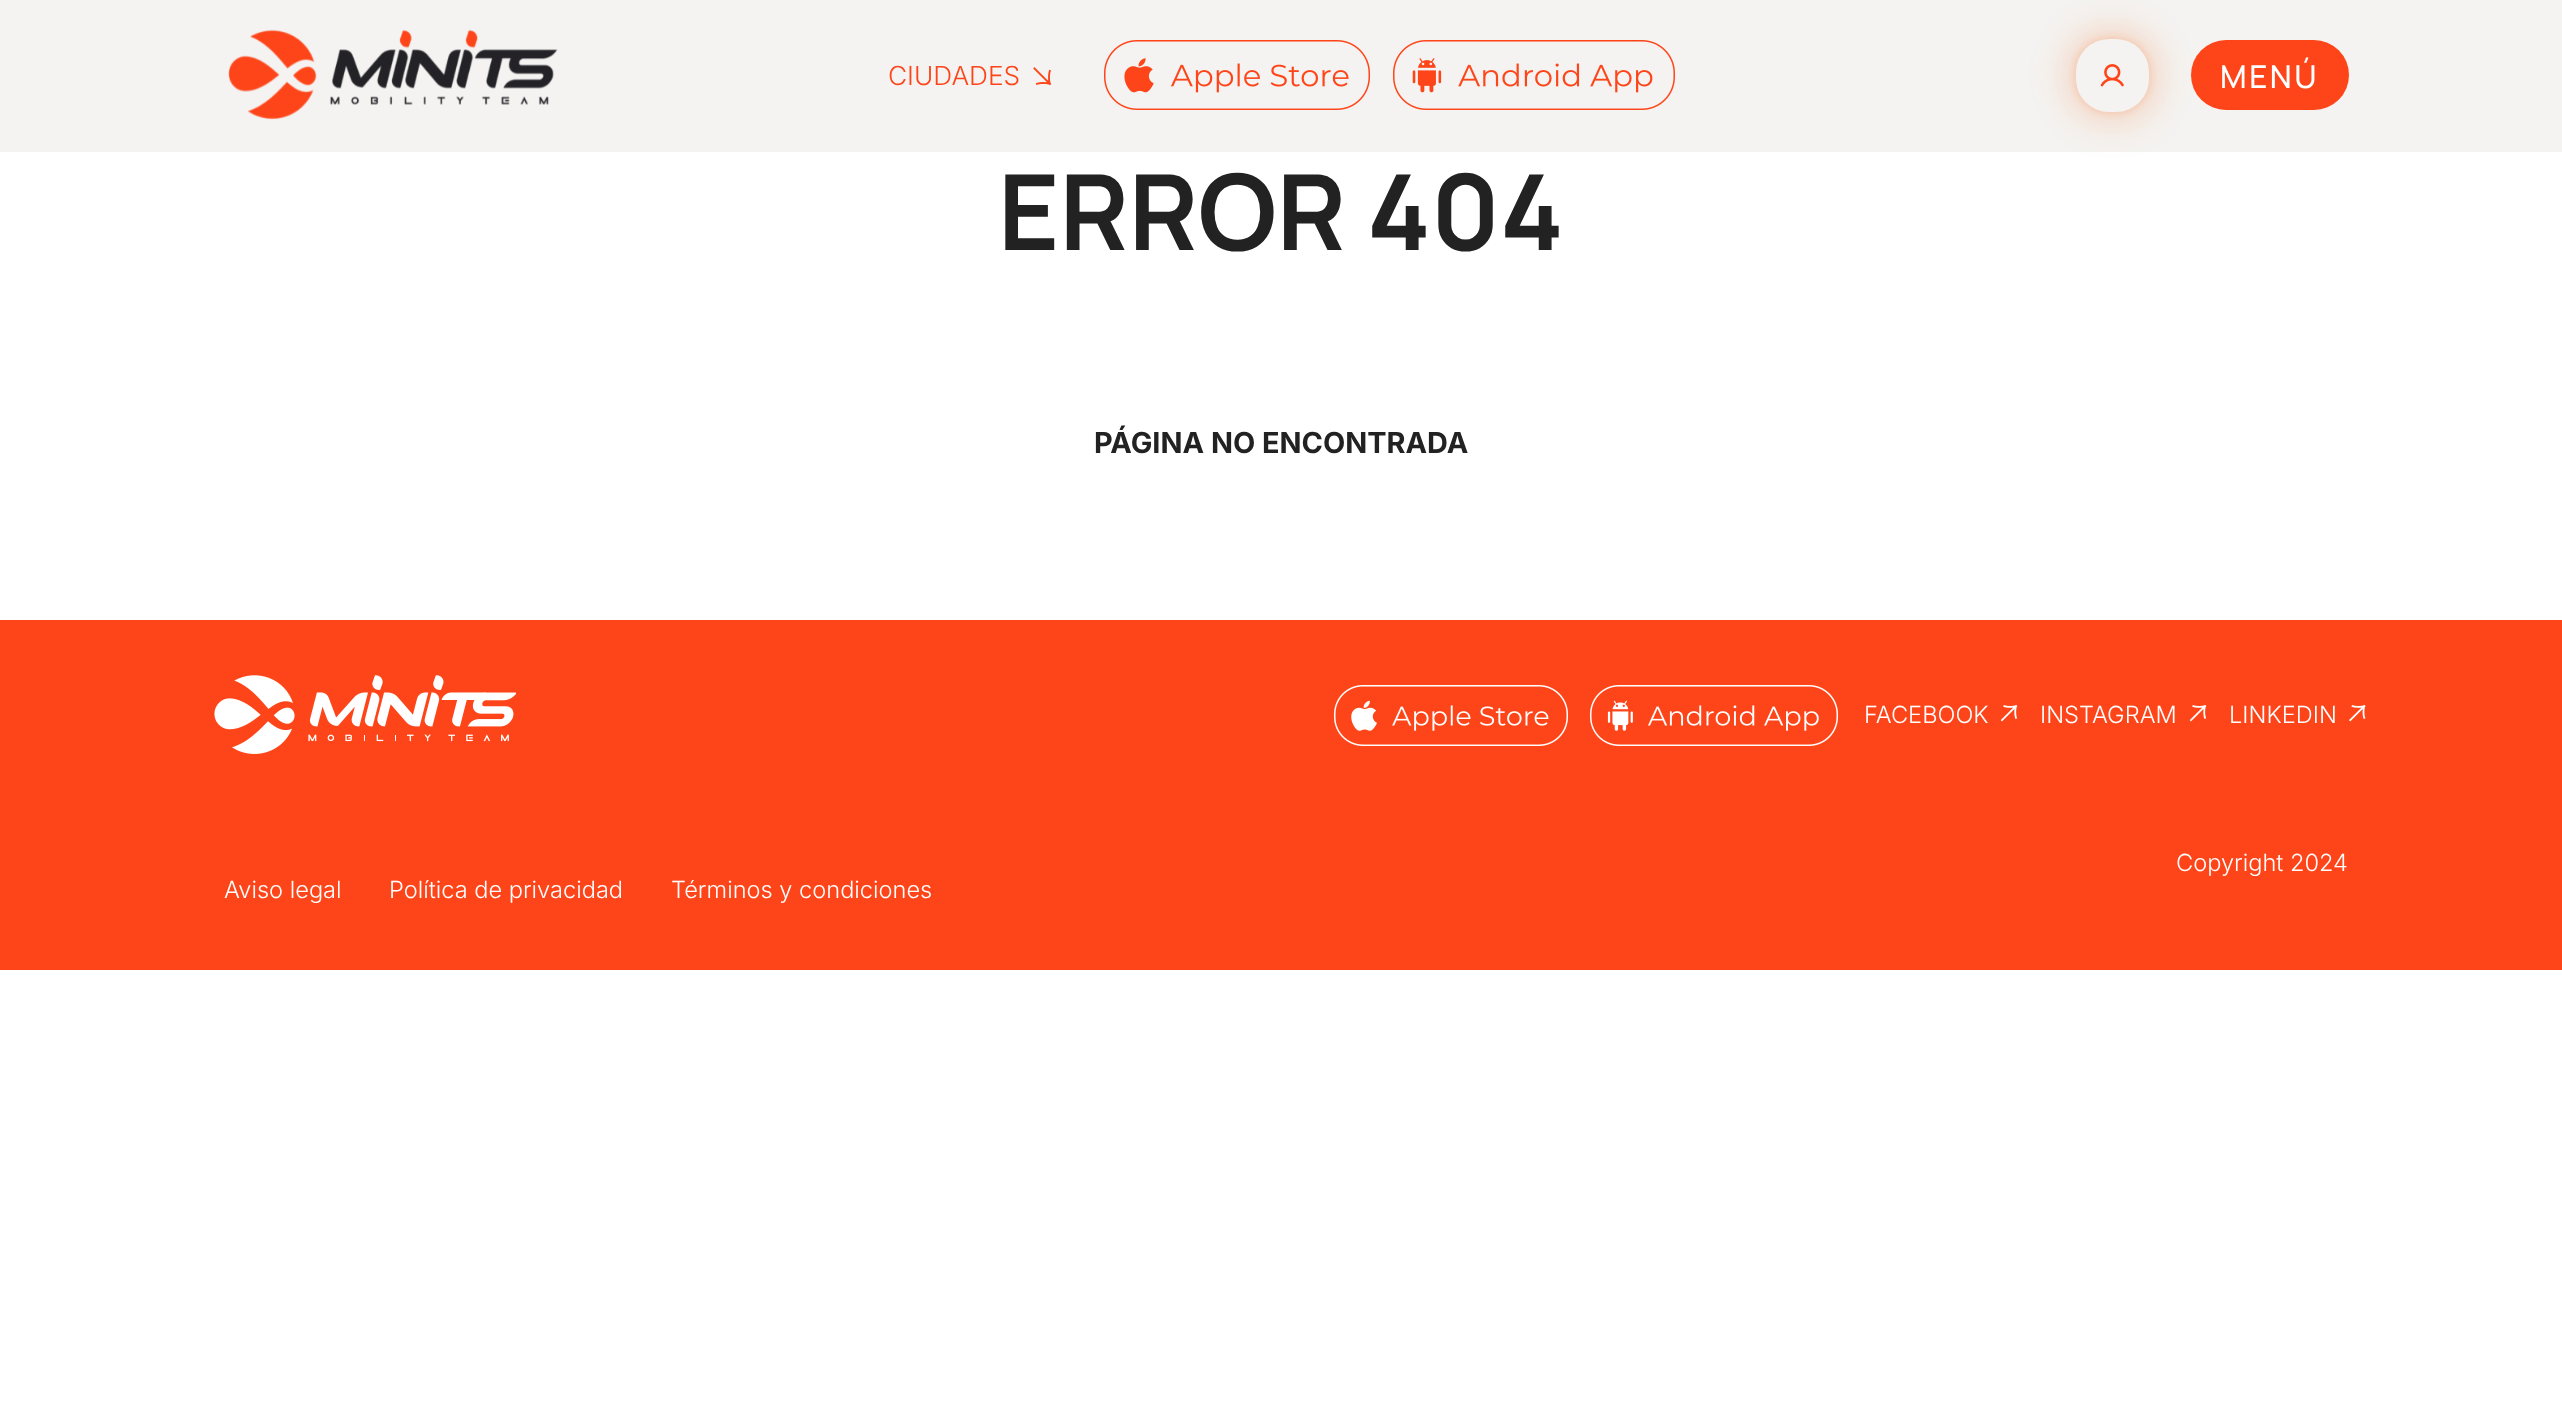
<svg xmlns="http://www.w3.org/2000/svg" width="2562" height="1401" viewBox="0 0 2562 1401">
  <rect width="100%" height="100%" fill="#fff"/>
  <path d="M0 0h2562v152H0z" fill="#f4f3f1"/>
  <image x="228" y="29" width="330" height="91" href="img/1.png"/>
  <image x="1033" y="67" width="19" height="19" href="img/2.png"/>
  <image x="1104" y="40" width="266" height="70" href="img/3.png"/>
  <image x="1393" y="40" width="282" height="70" href="img/4.png"/>
  <rect x="2076" y="39" width="73" height="73" rx="33" fill="#fe6b191a" filter="blur(3px)"/>
  <rect x="2076" y="39" width="73" height="73" rx="33" fill="#fe6b191a" filter="blur(5.5px)"/>
  <rect x="2076" y="39" width="73" height="73" rx="33" fill="#fe6b191a" filter="blur(11.5px)"/>
  <rect x="2076" y="39" width="73" height="73" rx="33" fill="#fe6b191a" filter="blur(22.5px)"/>
  <rect x="2060" y="23" width="105" height="105" rx="49" fill="#fe6b191a" filter="blur(16.5px)"/>
  <rect x="2076" y="39" width="73" height="73" rx="33" fill="#f4f3f1"/>
  <image x="2100" y="64" width="24" height="23" href="img/5.png"/>
  <rect x="2191" y="40" width="158" height="70" rx="35" fill="#fe4519"/>
  <path d="M0 620h2562v350H0z" fill="#fe4519"/>
  <image x="214" y="675" width="302" height="79" href="img/6.png"/>
  <image x="1334" y="685" width="234" height="61" href="img/7.png"/>
  <image x="1590" y="685" width="248" height="61" href="img/8.png"/>
  <image x="2000" y="705" width="18" height="17" href="img/9.png"/>
  <image x="2189" y="705" width="18" height="17" href="img/9.png"/>
  <image x="2349" y="704" width="17" height="18" href="img/10.png"/>
  <text x="888" y="85" font-family="Inter" font-size="26.25" font-weight="300" fill="#fe4519">CIUDADES</text>
  <text x="2220" y="88" font-family="Manrope" font-size="31.5" font-weight="500" letter-spacing="2.5" fill="#fff">MENÚ</text>
  <text x="998" y="250" font-family="Manrope" font-size="105" font-weight="bold" fill="#232222">ERROR 404</text>
  <text x="1094" y="453" font-family="Inter" font-size="28.9" font-weight="bold" fill="#232222">PÁGINA NO ENCONTRADA</text>
  <g font-family="Inter" font-size="23.6" font-weight="300" fill="#fff">
    <text x="1864" y="723">FACEBOOK</text>
    <text x="2040" y="723">INSTAGRAM</text>
    <text x="2229" y="723">LINKEDIN</text>
    <text x="2176" y="871">Copyright 2024</text>
    <text x="224" y="898">Aviso legal</text>
    <text x="389" y="898">Política de privacidad</text>
    <text x="671" y="898">Términos y condiciones</text>
  </g>
</svg>
